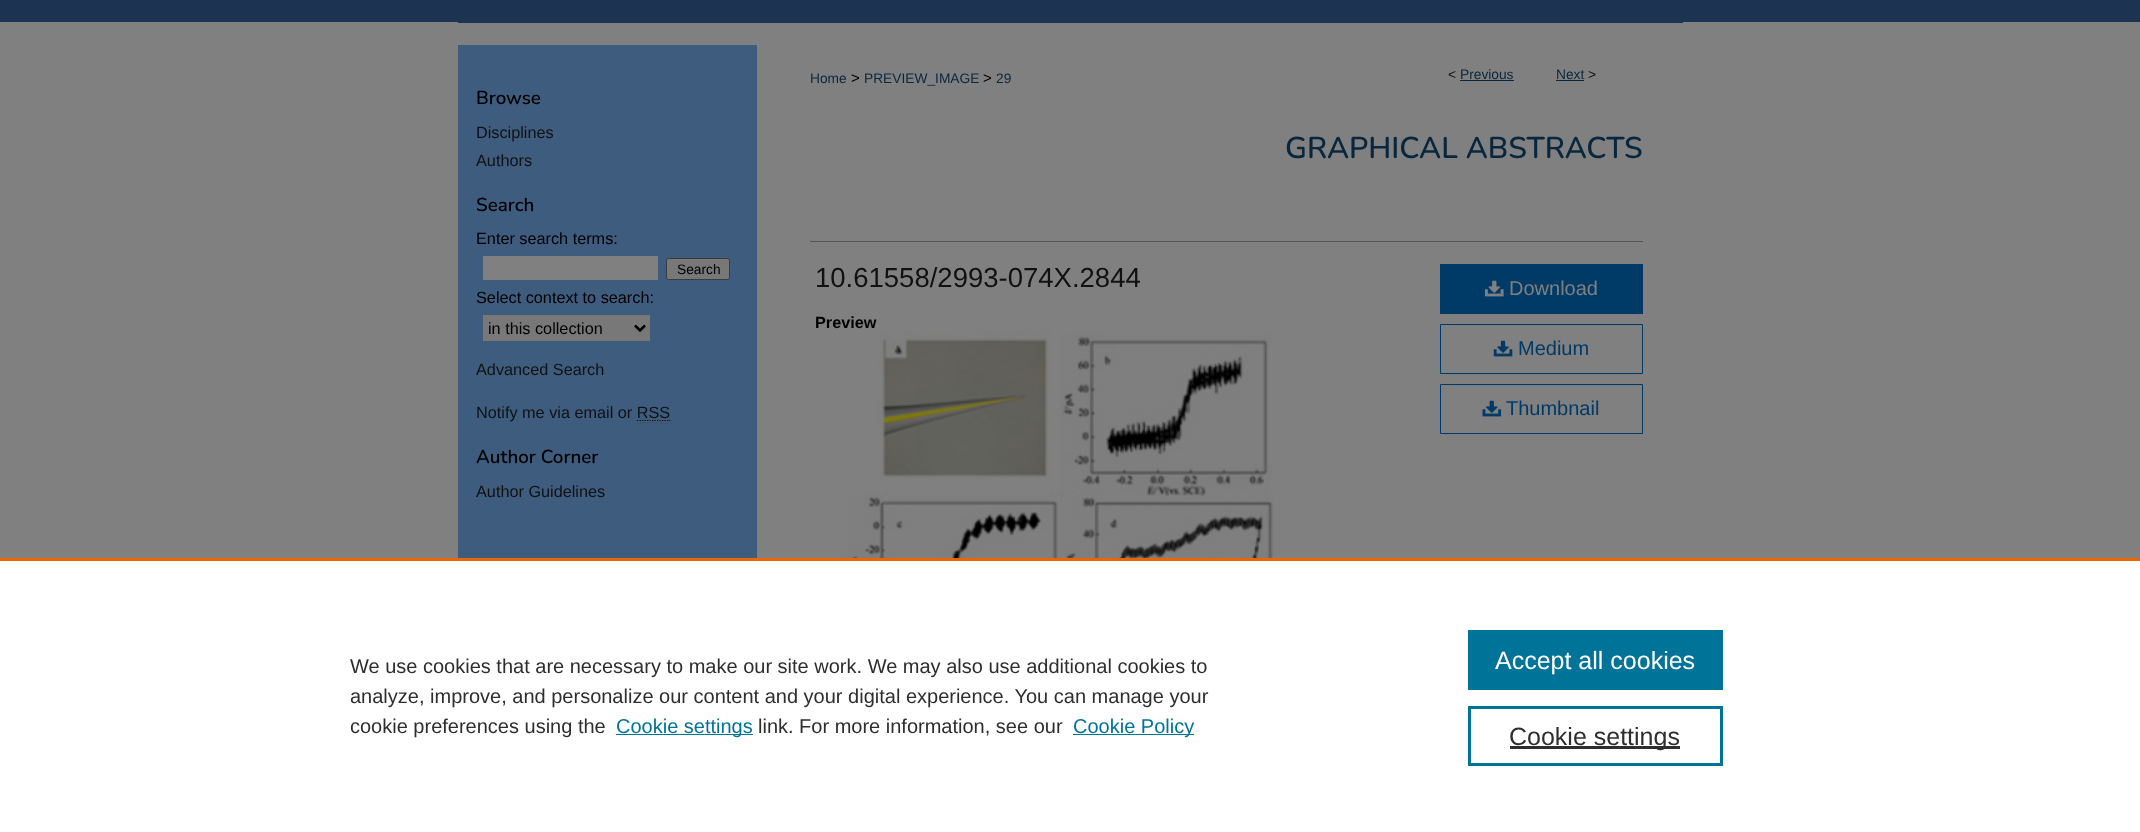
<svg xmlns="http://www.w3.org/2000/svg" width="2140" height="832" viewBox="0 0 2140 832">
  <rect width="100%" height="100%" fill="#808080"/>
  <path d="M0 0h2140v22H0z" fill="#1c3352"/>
  <path d="M458 22h1225v1H458z" fill="#1c3352"/>
  <path d="M458 45h299v513H458z" fill="#3e5c7e"/>
  <path d="M483 256h175v24H483z" fill="#808080"/>
  <rect x="666.5" y="258.5" width="63" height="21" rx="2" fill="#787878" stroke="#3b3b3b"/>
  <path d="M483 315h167v26H483z" fill="#787878"/>
  <path d="M635 325.5L640 330.5L645 325.5" fill="none" stroke="#000" stroke-width="2.5"/>
  <path d="M637.5 423H670" fill="none" stroke="#4d4d4d" stroke-width="1.2" stroke-dasharray="1.25 1.25"/>
  <path d="M1460 80h54v1H1460z" fill="#08273e"/>
  <path d="M1556 80h28v1H1556z" fill="#08273e"/>
  <path d="M810 241h833v1H810z" fill="#555"/>
  <image x="847" y="331" width="426" height="227" href="img/1.png"/>
  <path d="M1440 264h203v50H1440z" fill="#003a66"/>
  <image x="1485" y="280" width="19" height="17" href="img/2.png"/>
  <path d="M1440.5 324.5h202v49H1440.5z" fill="none" stroke="#003a66"/>
  <image x="1493" y="340" width="20" height="17" href="img/3.png"/>
  <path d="M1440.5 384.5h202v49H1440.5z" fill="none" stroke="#003a66"/>
  <image x="1482" y="400" width="20" height="17" href="img/4.png"/>
  <path d="M0 561h2140v271H0z" fill="#fff"/>
  <path d="M0 558h2140v3H0z" fill="#eb6500"/>
  <path d="M616 734h137v1H616z" fill="#007398"/>
  <path d="M1073 734h121v1H1073z" fill="#007398"/>
  <path d="M1468 630h255v60H1468z" fill="#007398"/>
  <path d="M1469.5 707.5h252v57H1469.5z" fill="none" stroke="#007398" stroke-width="3"/>
  <path d="M1510 746h170v3H1510z" fill="#2e2e2e"/>
  <text x="476" y="104" font-family="Nunito" font-size="18.75" font-weight="200" fill="#000">Browse</text>
  <g font-family="Liberation Sans" font-size="16.25" fill="#111">
    <text x="476" y="138">Disciplines</text>
    <text x="476" y="166">Authors</text>
  </g>
  <text x="476" y="211" font-family="Nunito" font-size="18.75" font-weight="200" fill="#000">Search</text>
  <text x="476" y="244" font-family="Liberation Sans" font-size="16.25" fill="#000">Enter search terms:</text>
  <text x="677" y="274" font-family="Liberation Sans" font-size="13.75" fill="#000">Search</text>
  <g font-family="Liberation Sans" font-size="16.25" fill="#000">
    <text x="476" y="303">Select context to search:</text>
    <text x="488" y="334">in this collection</text>
  </g>
  <g font-family="Liberation Sans" font-size="16.25" fill="#111">
    <text x="476" y="375">Advanced Search</text>
    <text x="476" y="418">Notify me via email or RSS</text>
  </g>
  <path d="M637 420.5H670.5" fill="none" stroke="#0f0f0f" stroke-width="1.2" stroke-dasharray="1.25 1.25"/>
  <text x="476" y="463" font-family="Nunito" font-size="18.75" font-weight="200" fill="#000">Author Corner</text>
  <text x="476" y="497" font-family="Liberation Sans" font-size="16.25" fill="#111">Author Guidelines</text>
  <text x="810" y="83" font-family="Liberation Sans" font-size="13.75" fill="#08273e">Home</text>
  <text x="851" y="83" font-family="Liberation Sans" font-size="15" fill="#000">&gt;</text>
  <text x="864" y="83" font-family="Liberation Sans" font-size="13.75" fill="#08273e">PREVIEW_IMAGE</text>
  <text x="983" y="83" font-family="Liberation Sans" font-size="15" fill="#000">&gt;</text>
  <text x="996" y="83" font-family="Liberation Sans" font-size="13.75" fill="#08273e">29</text>
  <text x="1448" y="79" font-family="Liberation Sans" font-size="13.75" fill="#111">&lt;</text>
  <g font-family="Liberation Sans" font-size="13.75" fill="#08273e">
    <text x="1460" y="79">Previous</text>
    <text x="1556" y="79">Next</text>
  </g>
  <text x="1588" y="79" font-family="Liberation Sans" font-size="13.75" fill="#111">&gt;</text>
  <text x="1285" y="158" font-family="Nunito" font-size="30" font-weight="200" fill="#08273e">GRAPHICAL ABSTRACTS</text>
  <text x="815" y="287" font-family="Liberation Sans" font-size="27.5" fill="#111">10.61558/2993-074X.2844</text>
  <text x="815" y="328" font-family="Liberation Sans" font-size="16.25" font-weight="bold" fill="#000">Preview</text>
  <text x="1509" y="295" font-family="Liberation Sans" font-size="20" fill="#808080">Download</text>
  <g font-family="Liberation Sans" font-size="20" fill="#003a66">
    <text x="1518" y="355">Medium</text>
    <text x="1506" y="415">Thumbnail</text>
  </g>
  <g font-family="Liberation Sans" font-size="20" fill="#2e2e2e">
    <text x="350" y="673">We use cookies that are necessary to make our site work. We may also use additional cookies to</text>
    <text x="350" y="703">analyze, improve, and personalize our content and your digital experience. You can manage your</text>
    <text x="350" y="733">cookie preferences using the</text>
  </g>
  <text x="616" y="733" font-family="Liberation Sans" font-size="20" fill="#007398">Cookie settings</text>
  <text x="758" y="733" font-family="Liberation Sans" font-size="20" fill="#2e2e2e">link. For more information, see our</text>
  <text x="1073" y="733" font-family="Liberation Sans" font-size="20" fill="#007398">Cookie Policy</text>
  <text x="1495" y="669" font-family="Liberation Sans" font-size="25" fill="#fff">Accept all cookies</text>
  <text x="1509" y="745" font-family="Liberation Sans" font-size="25" fill="#2e2e2e">Cookie settings</text>
</svg>
